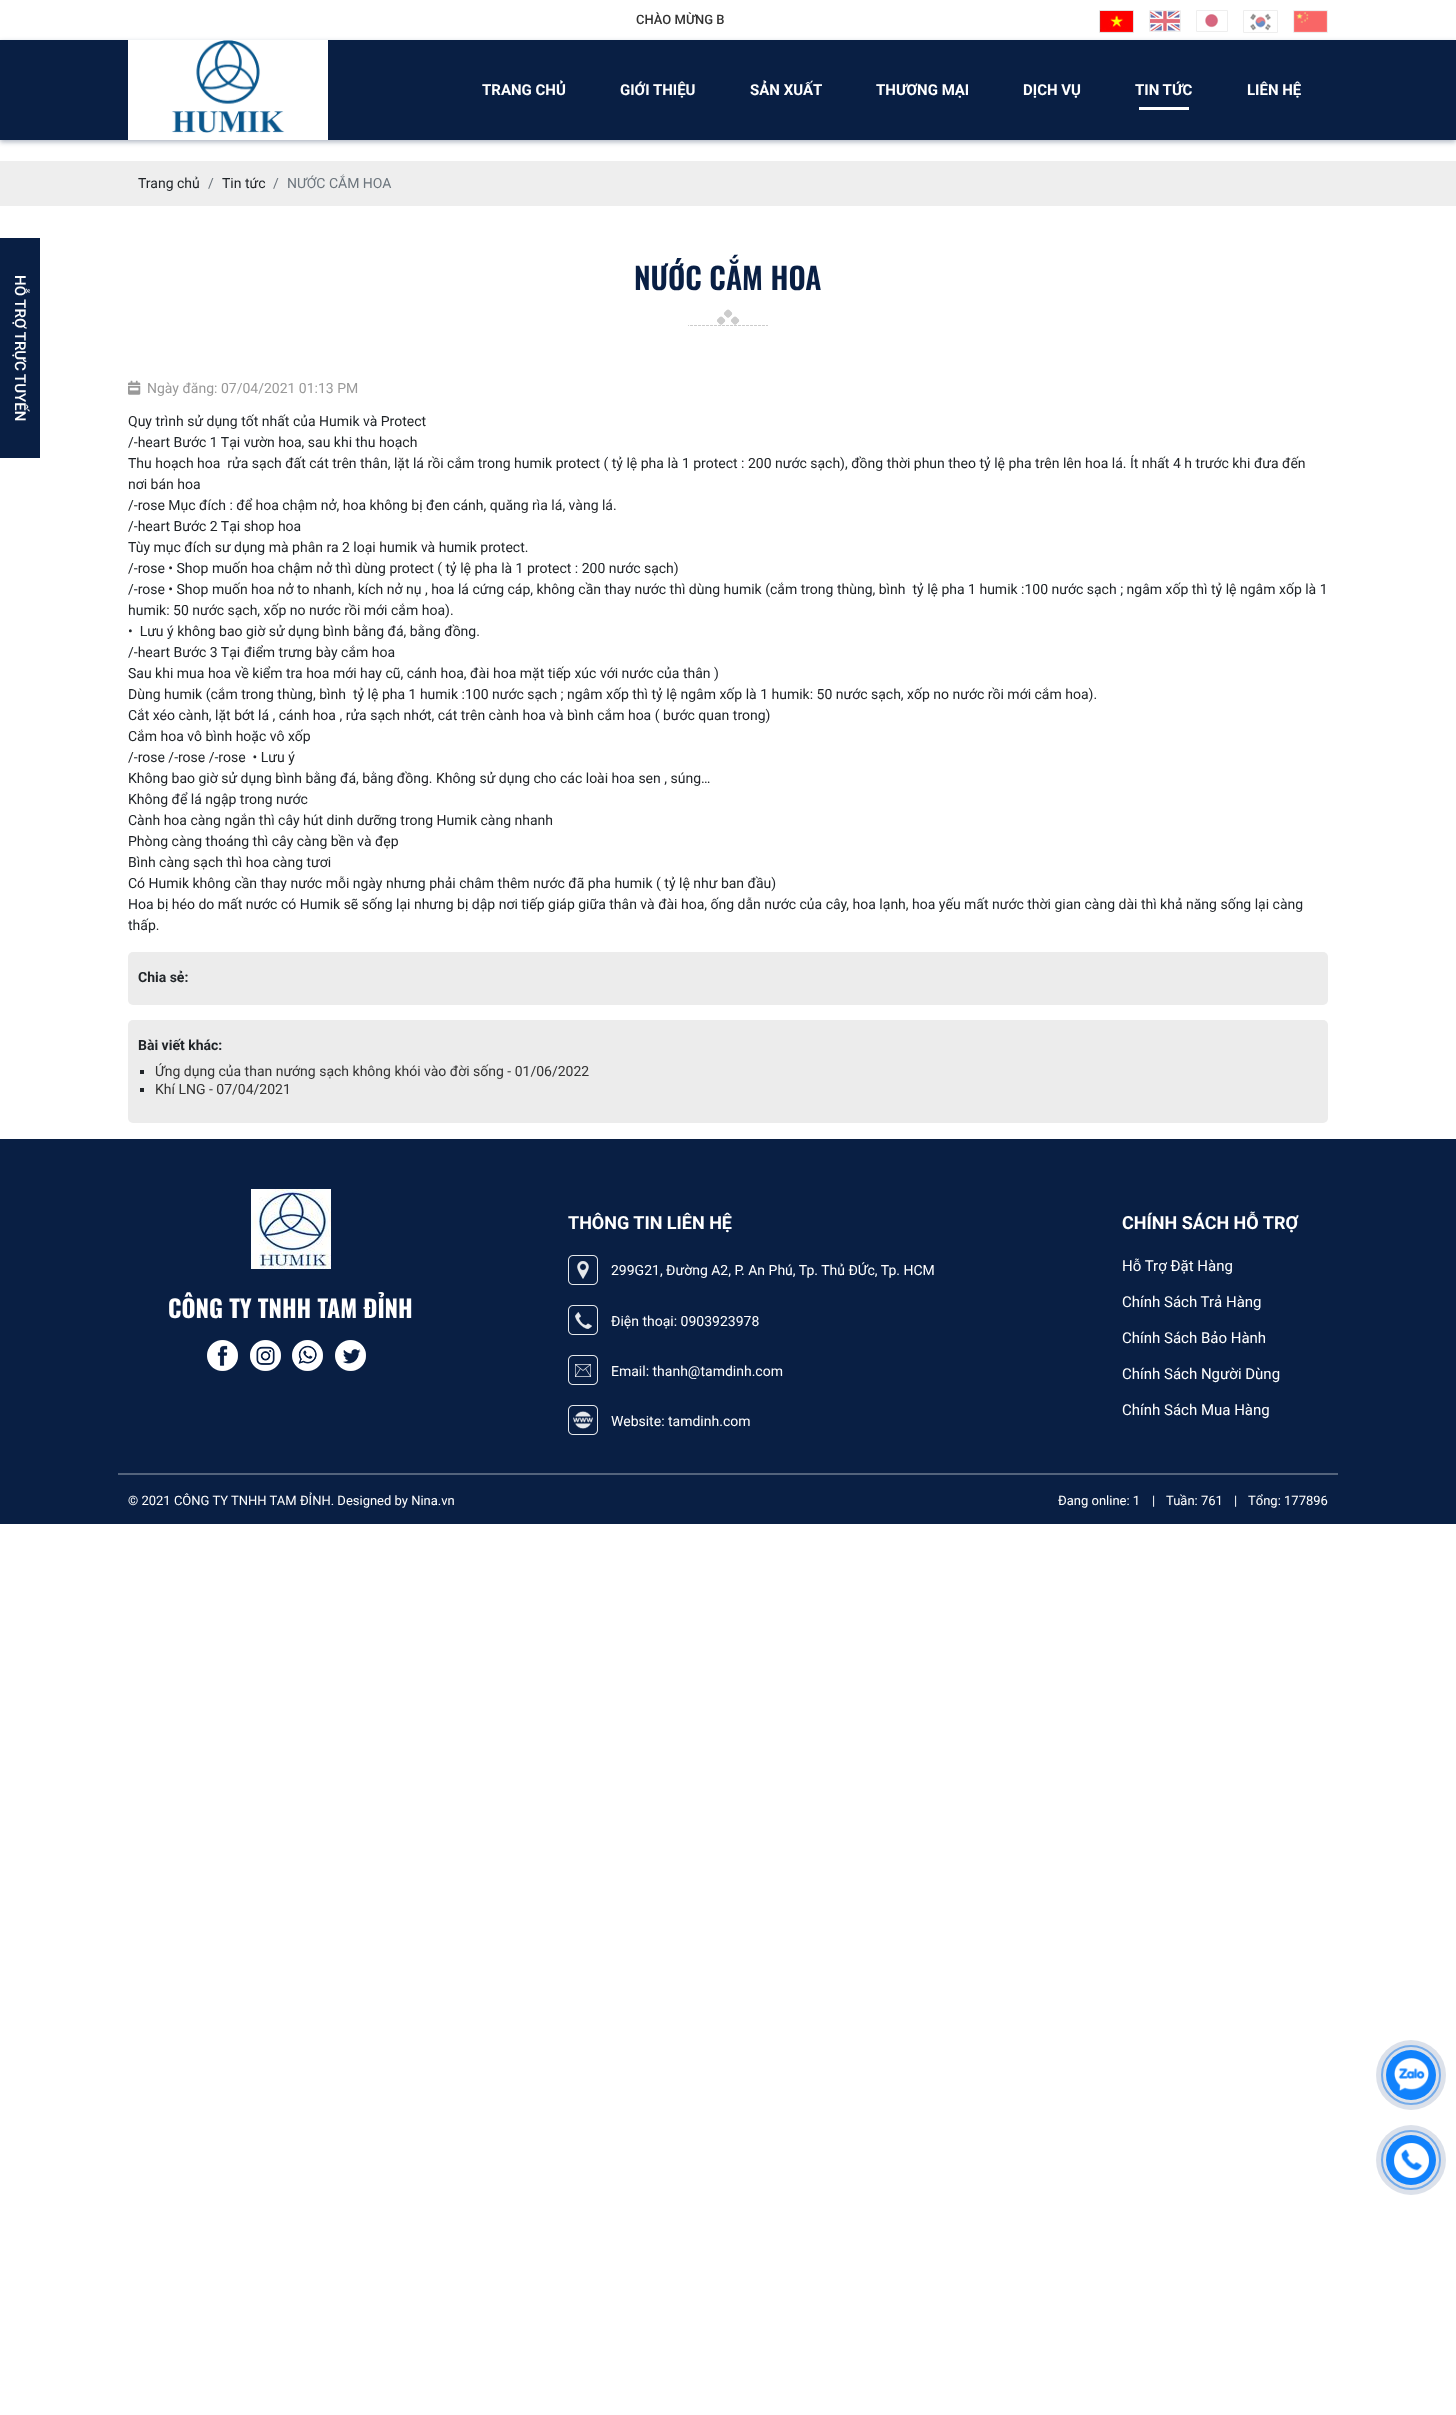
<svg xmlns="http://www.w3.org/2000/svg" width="1456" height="2415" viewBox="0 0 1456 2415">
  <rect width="100%" height="100%" fill="#fff"/>
  <path d="M1099.5 10.5h34v22H1099.5z" fill="none" stroke="#e2e2e2"/>
  <image x="1100" y="11" width="33" height="21" href="img/1.png"/>
  <path d="M1149.5 10.5h31v21H1149.5z" fill="none" stroke="#eee"/>
  <image x="1150" y="11" width="30" height="20" href="img/2.png"/>
  <path d="M1196.5 10.5h31v21H1196.5z" fill="none" stroke="#eee"/>
  <image x="1205" y="14" width="14" height="14" href="img/3.png"/>
  <path d="M1243.5 10.5h34v22H1243.5z" fill="none" stroke="#eee"/>
  <image x="1250" y="13" width="21" height="18" href="img/4.png"/>
  <path d="M1293.5 10.5h34v22H1293.5z" fill="none" stroke="#eee"/>
  <image x="1294" y="11" width="33" height="21" href="img/5.png"/>
  <path d="M0 42h1456v100H0z" fill="#091f4454" filter="blur(2.5px)"/>
  <path d="M0 40h1456v100H0z" fill="#091f44"/>
  <image x="128" y="40" width="200" height="100" href="img/6.png"/>
  <path d="M1139 107h50v3H1139z" fill="#fff"/>
  <path d="M0 161h1456v45H0z" fill="#eee"/>
  <path d="M0 238h40v220H0z" fill="#091f44"/>
  <image x="688" y="309" width="80" height="17" href="img/7.png"/>
  <image x="128" y="380" width="13" height="15" href="img/8.png"/>
  <rect x="128" y="952" width="1200" height="53" rx="5" fill="#ececec"/>
  <rect x="128" y="1020" width="1200" height="103" rx="5" fill="#ececec"/>
  <path d="M140 1070h4v4H140z" fill="#212529"/>
  <path d="M140 1088h4v4H140z" fill="#212529"/>
  <path d="M0 1139h1456v385H0z" fill="#091f44"/>
  <path d="M118 1473h1220v2H118z" fill="#53637c"/>
  <image x="251" y="1189" width="80" height="80" href="img/9.png"/>
  <image x="207" y="1340" width="31" height="31" href="img/10.png"/>
  <image x="250" y="1340" width="31" height="31" href="img/11.png"/>
  <image x="292" y="1340" width="31" height="31" href="img/12.png"/>
  <image x="335" y="1340" width="31" height="31" href="img/13.png"/>
  <image x="568" y="1255" width="30" height="30" href="img/14.png"/>
  <image x="568" y="1305" width="30" height="30" href="img/15.png"/>
  <image x="568" y="1355" width="30" height="30" href="img/16.png"/>
  <image x="568" y="1405" width="30" height="30" href="img/17.png"/>
  <circle cx="1411" cy="2075" r="29" fill="none" stroke="#88c1fe" stroke-width="2"/>
  <circle cx="1411" cy="2075" r="35" fill="#07296724"/>
  <circle cx="1411" cy="2075" r="25" fill="#1182fc"/>
  <image x="1394" y="2058" width="35" height="33" href="img/18.png"/>
  <circle cx="1411" cy="2160" r="29" fill="none" stroke="#88c1fe" stroke-width="2"/>
  <circle cx="1411" cy="2160" r="35" fill="#07296724"/>
  <circle cx="1411" cy="2160" r="25" fill="#1182fc"/>
  <image x="1394" y="2143" width="35" height="35" href="img/19.png"/>
  <text x="636" y="24" font-family="Roboto" font-size="13" font-weight="500" fill="#333">CHÀO MỪNG B</text>
  <g font-family="Roboto" font-size="15" font-weight="bold" fill="#fff">
    <text x="482" y="95">TRANG CHỦ</text>
    <text x="620" y="95">GIỚI THIỆU</text>
    <text x="750" y="95">SẢN XUẤT</text>
    <text x="876" y="95">THƯƠNG MẠI</text>
    <text x="1023" y="95">DỊCH VỤ</text>
    <text x="1135" y="95">TIN TỨC</text>
    <text x="1247" y="95">LIÊN HỆ</text>
  </g>
  <text x="138" y="188" font-family="Roboto" font-size="14" fill="#212529">Trang chủ</text>
  <text x="208" y="188" font-family="Roboto" font-size="14" fill="#6c757d">/</text>
  <text x="222" y="188" font-family="Roboto" font-size="14" fill="#212529">Tin tức</text>
  <g font-family="Roboto" font-size="14" fill="#6c757d">
    <text x="273" y="188">/</text>
    <text x="287" y="188">NƯỚC CẮM HOA</text>
  </g>
  <text x="15" y="275" transform="rotate(90 15 275)" font-family="Roboto" font-size="15" font-weight="500" fill="#fff">HỖ TRỢ TRỰC TUYẾN</text>
  <text x="634" y="290" font-family="Oswald" font-size="30" font-weight="600" fill="#091f44">NƯỚC CẮM HOA</text>
  <text x="147" y="393" font-family="Roboto" font-size="14" fill="#999">Ngày đăng: 07/04/2021 01:13 PM</text>
  <g font-family="Roboto" font-size="14" fill="#212529">
    <text x="128" y="426">Quy trình sử dụng tốt nhất của Humik và Protect</text>
    <text x="128" y="447">/-heart Bước 1 Tại vườn hoa, sau khi thu hoạch</text>
    <text x="128" y="468" xml:space="preserve">Thu hoạch hoa  rửa sạch đất cát trên thân, lặt lá rồi cắm trong humik protect ( tỷ lệ pha là 1 protect : 200 nước sạch), đồng thời phun theo tỷ lệ pha trên lên hoa lá. Ít nhất 4 h trước khi đưa đến</text>
    <text x="128" y="489">nơi bán hoa</text>
    <text x="128" y="510">/-rose Mục đích : để hoa chậm nở, hoa không bị đen cánh, quăng rìa lá, vàng lá.</text>
    <text x="128" y="531">/-heart Bước 2 Tại shop hoa</text>
    <text x="128" y="552">Tùy mục đích sư dụng mà phân ra 2 loại humik và humik protect.</text>
    <text x="128" y="573">/-rose • Shop muốn hoa chậm nở thì dùng protect ( tỷ lệ pha là 1 protect : 200 nước sạch)</text>
    <text x="128" y="594" xml:space="preserve">/-rose • Shop muốn hoa nở to nhanh, kích nở nụ , hoa lá cứng cáp, không cần thay nước thì dùng humik (cắm trong thùng, bình  tỷ lệ pha 1 humik :100 nước sạch ; ngâm xốp thì tỷ lệ ngâm xốp là 1</text>
    <text x="128" y="615">humik: 50 nước sạch, xốp no nước rồi mới cắm hoa).</text>
    <text x="128" y="636" xml:space="preserve">•  Lưu ý không bao giờ sử dụng bình bằng đá, bằng đồng.</text>
    <text x="128" y="657">/-heart Bước 3 Tại điểm trưng bày cắm hoa</text>
    <text x="128" y="678">Sau khi mua hoa về kiểm tra hoa mới hay cũ, cánh hoa, đài hoa mặt tiếp xúc với nước của thân )</text>
    <text x="128" y="699" xml:space="preserve">Dùng humik (cắm trong thùng, bình  tỷ lệ pha 1 humik :100 nước sạch ; ngâm xốp thì tỷ lệ ngâm xốp là 1 humik: 50 nước sạch, xốp no nước rồi mới cắm hoa).</text>
    <text x="128" y="720">Cắt xéo cành, lặt bớt lá , cánh hoa , rửa sạch nhớt, cát trên cành hoa và bình cắm hoa ( bước quan trong)</text>
    <text x="128" y="741">Cắm hoa vô bình hoặc vô xốp</text>
    <text x="128" y="762" xml:space="preserve">/-rose /-rose /-rose  • Lưu ý</text>
    <text x="128" y="783">Không bao giờ sử dụng bình bằng đá, bằng đồng. Không sử dụng cho các loài hoa sen , súng…</text>
    <text x="128" y="804">Không để lá ngập trong nước</text>
    <text x="128" y="825">Cành hoa càng ngắn thì cây hút dinh dưỡng trong Humik càng nhanh</text>
    <text x="128" y="846">Phòng càng thoáng thì cây càng bền và đẹp</text>
    <text x="128" y="867">Bình càng sạch thì hoa càng tươi</text>
    <text x="128" y="888">Có Humik không cần thay nước mỗi ngày nhưng phải châm thêm nước đã pha humik ( tỷ lệ như ban đầu)</text>
    <text x="128" y="909">Hoa bị héo do mất nước có Humik sẽ sống lại nhưng bị dập nơi tiếp giáp giữa thân và đài hoa, ống dẫn nước của cây, hoa lạnh, hoa yếu mất nước thời gian càng dài thì khả năng sống lại càng</text>
    <text x="128" y="930">thấp.</text>
  </g>
  <g font-family="Roboto" font-size="14" font-weight="bold" fill="#212529">
    <text x="138" y="982">Chia sẻ:</text>
    <text x="138" y="1050">Bài viết khác:</text>
  </g>
  <g font-family="Roboto" font-size="14" fill="#333">
    <text x="155" y="1076">Ứng dụng của than nướng sạch không khói vào đời sống - 01/06/2022</text>
    <text x="155" y="1094">Khí LNG - 07/04/2021</text>
  </g>
  <text x="168" y="1318" font-family="Oswald" font-size="24" font-weight="bold" fill="#fff">CÔNG TY TNHH TAM ĐỈNH</text>
  <text x="568" y="1229" font-family="Roboto" font-size="18" font-weight="bold" fill="#fff">THÔNG TIN LIÊN HỆ</text>
  <g font-family="Roboto" font-size="14" fill="#fff">
    <text x="611" y="1275">299G21, Đường A2, P. An Phú, Tp. Thủ ĐỨc, Tp. HCM</text>
    <text x="611" y="1326">Điện thoại: 0903923978</text>
    <text x="611" y="1376">Email: thanh@tamdinh.com</text>
    <text x="611" y="1426">Website: tamdinh.com</text>
  </g>
  <text x="1122" y="1229" font-family="Roboto" font-size="18" font-weight="bold" fill="#fff">CHÍNH SÁCH HỖ TRỢ</text>
  <g font-family="Roboto" font-size="15" fill="#fff">
    <text x="1122" y="1271">Hỗ Trợ Đặt Hàng</text>
    <text x="1122" y="1307">Chính Sách Trả Hàng</text>
    <text x="1122" y="1343">Chính Sách Bảo Hành</text>
    <text x="1122" y="1379">Chính Sách Người Dùng</text>
    <text x="1122" y="1415">Chính Sách Mua Hàng</text>
  </g>
  <g font-family="Roboto" font-size="13" fill="#fff">
    <text x="128" y="1505">© 2021 CÔNG TY TNHH TAM ĐỈNH. Designed by Nina.vn</text>
    <text x="1058" y="1505">Đang online: 1</text>
    <text x="1152" y="1505">|</text>
    <text x="1166" y="1505">Tuần: 761</text>
    <text x="1234" y="1505">|</text>
    <text x="1248" y="1505">Tổng: 177896</text>
  </g>
</svg>
